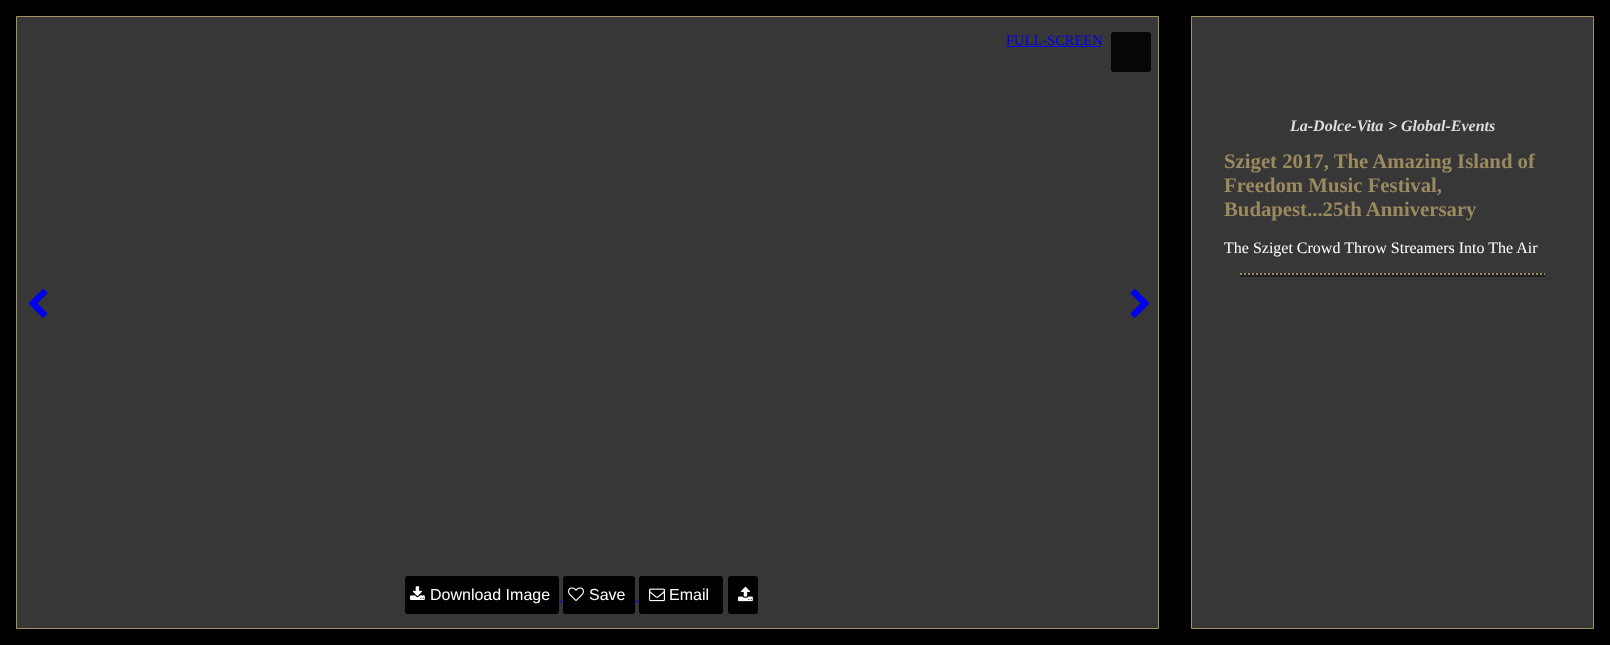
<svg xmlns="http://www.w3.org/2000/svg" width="1610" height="645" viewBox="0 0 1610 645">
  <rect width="100%" height="100%" fill="#000"/>
  <path d="M16.5 16.5h1142v612H16.5z" fill="#373737" stroke="#a29060"/>
  <path d="M1006 46h95v1H1006z" fill="#00e"/>
  <rect x="1111" y="32" width="40" height="40" rx="3" fill="#060606"/>
  <image x="28" y="289" width="20" height="29" href="img/1.png"/>
  <image x="1130" y="289" width="20" height="29" href="img/2.png"/>
  <rect x="405" y="576" width="154" height="38" rx="3" fill="#000"/>
  <image x="410" y="586" width="15" height="14" href="img/3.png"/>
  <path d="M559 601h4v1H559z" fill="#00e"/>
  <rect x="563" y="576" width="72" height="38" rx="3" fill="#000"/>
  <image x="568" y="587" width="16" height="15" href="img/4.png"/>
  <path d="M635 601h4v1H635z" fill="#00e"/>
  <rect x="639" y="576" width="84" height="38" rx="3" fill="#000"/>
  <image x="649" y="588" width="16" height="14" href="img/5.png"/>
  <rect x="728" y="576" width="30" height="38" rx="3" fill="#000"/>
  <image x="738" y="586" width="15" height="16" href="img/6.png"/>
  <path d="M1191.5 16.5h402v612H1191.5z" fill="#373737" stroke="#a29060"/>
  <path d="M1240 273h305v4H1240z" fill="#212121"/>
  <path d="M1240 274H1545" fill="none" stroke="#9a8a5f" stroke-width="2" stroke-dasharray="2 2"/>
  <text x="1006" y="45" font-family="Liberation Serif" font-size="14.5" fill="#00e">FULL-SCREEN</text>
  <g font-family="Liberation Sans" font-size="16" fill="#fff">
    <text x="430" y="600">Download Image</text>
    <text x="589" y="600">Save</text>
    <text x="669" y="600">Email</text>
  </g>
  <text x="1290" y="131" font-family="Liberation Serif" font-size="16" font-weight="bold" font-style="italic" fill="#ddd">La-Dolce-Vita</text>
  <text x="1388" y="131" font-family="Liberation Serif" font-size="16" font-weight="bold" font-style="italic" fill="#fff">&gt;</text>
  <text x="1401" y="131" font-family="Liberation Serif" font-size="16" font-weight="bold" font-style="italic" fill="#ddd">Global-Events</text>
  <g font-family="Liberation Serif" font-size="20.75" font-weight="bold" fill="#9a8a5f">
    <text x="1224" y="168">Sziget 2017, The Amazing Island of</text>
    <text x="1224" y="192">Freedom Music Festival,</text>
    <text x="1224" y="216">Budapest...25th Anniversary</text>
  </g>
  <text x="1224" y="253" font-family="Liberation Serif" font-size="16" fill="#fff">The Sziget Crowd Throw Streamers Into The Air</text>
</svg>
